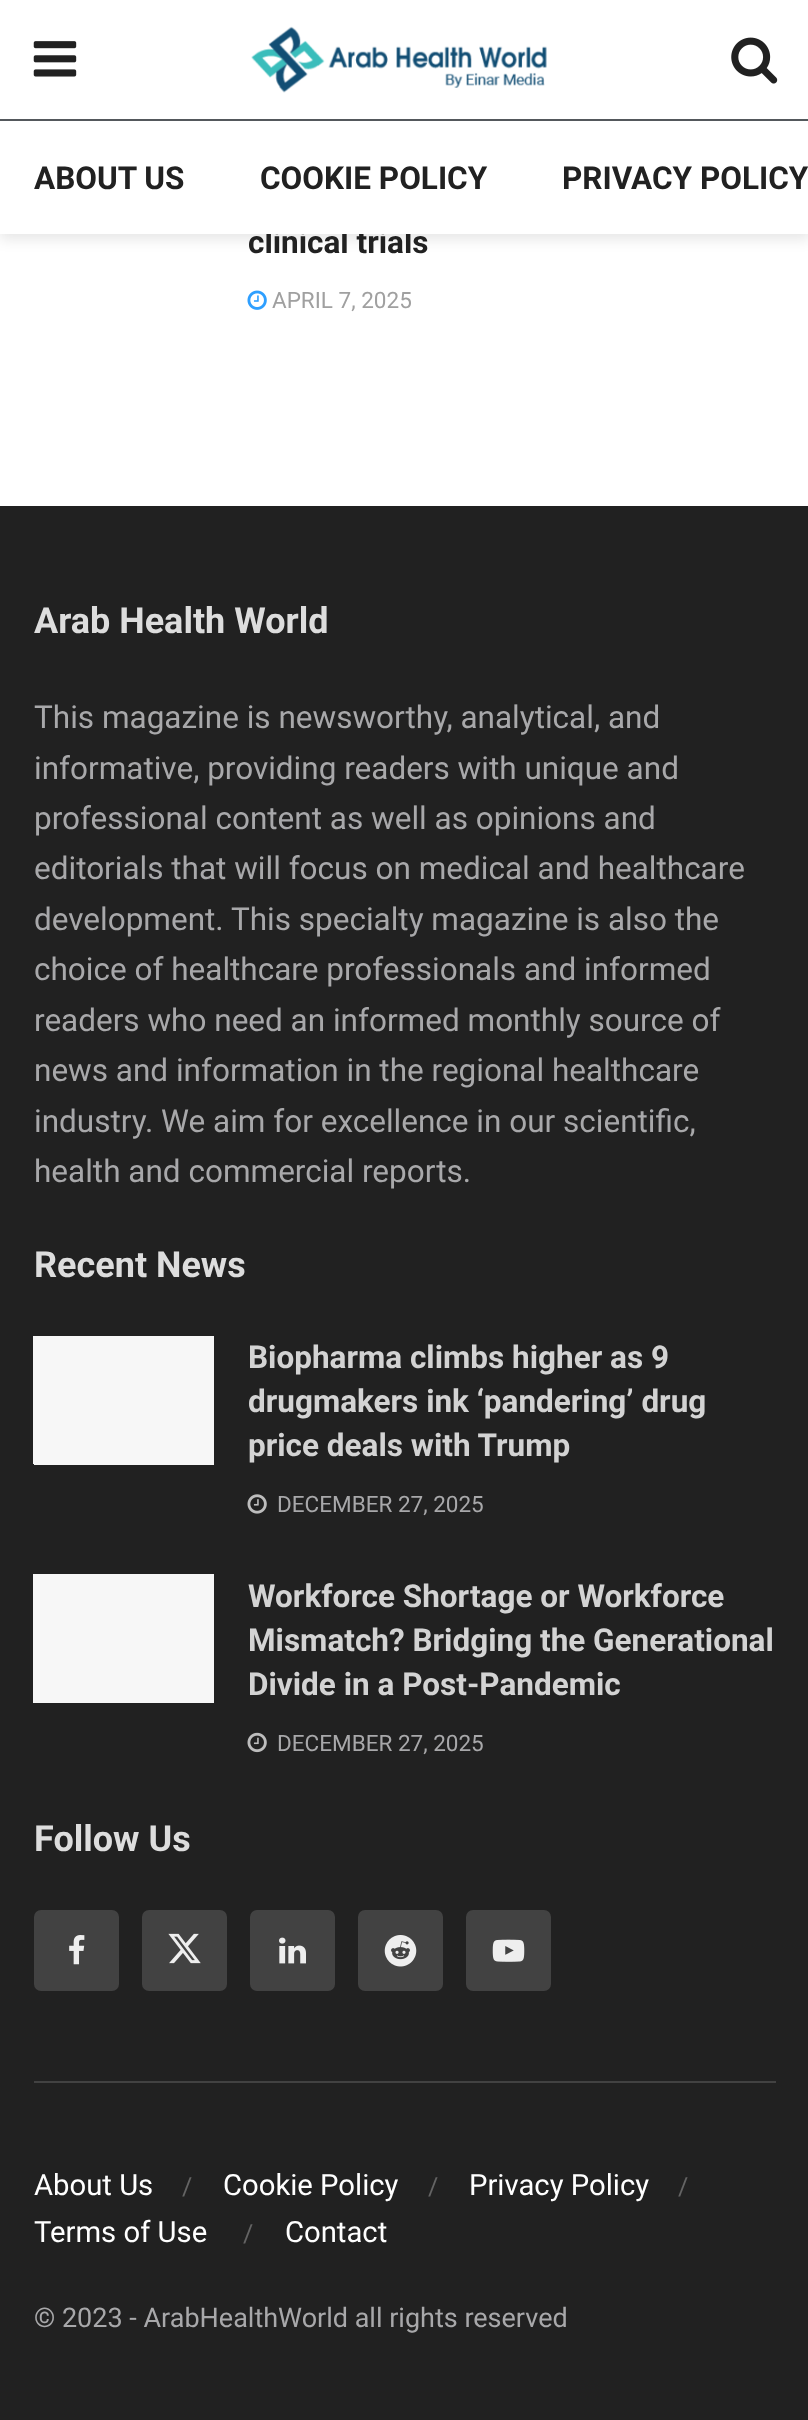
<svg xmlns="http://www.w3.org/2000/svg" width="808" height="2420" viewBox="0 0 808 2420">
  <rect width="100%" height="100%" fill="#fff"/>
  <path d="M0 5h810v234H0z" fill="#0000001a" filter="blur(7px)"/>
  <image x="247" y="290" width="20" height="20" href="img/4.png"/>
  <path d="M0 506h808v1914H0z" fill="#212121"/>
  <path d="M34 1464h180v1H34z" fill="#f7f7f7"/>
  <path d="M33 1336h181v128H33z" fill="#f7f7f7"/>
  <image x="247" y="1494" width="20" height="20" href="img/5.png"/>
  <path d="M33 1574h181v129H33z" fill="#f7f7f7"/>
  <image x="247" y="1732" width="20" height="21" href="img/6.png"/>
  <rect x="34" y="1910" width="85" height="81" rx="7" fill="#424242"/>
  <image x="69" y="1935" width="16" height="30" href="img/7.png"/>
  <rect x="142" y="1910" width="85" height="81" rx="7" fill="#424242"/>
  <image x="168" y="1933" width="33" height="31" href="img/8.png"/>
  <rect x="250" y="1910" width="85" height="81" rx="7" fill="#424242"/>
  <image x="279" y="1937" width="27" height="27" href="img/9.png"/>
  <rect x="358" y="1910" width="85" height="81" rx="7" fill="#424242"/>
  <image x="384" y="1935" width="33" height="32" href="img/10.png"/>
  <rect x="466" y="1910" width="85" height="81" rx="7" fill="#424242"/>
  <image x="492" y="1939" width="33" height="23" href="img/11.png"/>
  <path d="M34 2081h742v2H34z" fill="#424242"/>
  <text x="248" y="253" font-family="Roboto" font-size="31.5" font-weight="bold" fill="#212121">clinical trials</text>
  <path d="M0 0h808v234H0z" fill="#fff"/>
  <image x="731" y="37" width="47" height="47" href="img/3.png"/>
  <image x="251" y="26" width="296" height="67" href="img/2.png"/>
  <image x="33" y="41" width="44" height="36" href="img/1.png"/>
  <g font-family="Roboto" font-size="31.5" font-weight="bold" fill="#212121">
    <text x="562" y="189">PRIVACY POLICY</text>
    <text x="260" y="189">COOKIE POLICY</text>
    <text x="34" y="189">ABOUT US</text>
  </g>
  <path d="M0 119h808v2H0z" fill="#53585c"/>
  <text x="272" y="308" font-family="Roboto" font-size="22.5" fill="#a0a0a0">APRIL 7, 2025</text>
  <text x="34" y="633" font-family="Roboto" font-size="36" font-weight="bold" fill="#ddd">Arab Health World</text>
  <g font-family="Roboto" font-size="31.5" fill="#a8a8aa">
    <text x="34" y="728">This magazine is newsworthy, analytical, and</text>
    <text x="34" y="779">informative, providing readers with unique and</text>
    <text x="34" y="829">professional content as well as opinions and</text>
    <text x="34" y="879">editorials that will focus on medical and healthcare</text>
    <text x="34" y="930">development. This specialty magazine is also the</text>
    <text x="34" y="980">choice of healthcare professionals and informed</text>
    <text x="34" y="1031">readers who need an informed monthly source of</text>
    <text x="34" y="1081">news and information in the regional healthcare</text>
    <text x="34" y="1132">industry. We aim for excellence in our scientific,</text>
    <text x="34" y="1182">health and commercial reports.</text>
  </g>
  <text x="34" y="1277" font-family="Roboto" font-size="36" font-weight="bold" fill="#ddd">Recent News</text>
  <g font-family="Roboto" font-size="31.5" font-weight="bold" fill="#d3d3d3">
    <text x="248" y="1368">Biopharma climbs higher as 9</text>
    <text x="248" y="1412">drugmakers ink ‘pandering’ drug</text>
    <text x="248" y="1456">price deals with Trump</text>
  </g>
  <text x="277" y="1512" font-family="Roboto" font-size="22.5" fill="#a8a8aa">DECEMBER 27, 2025</text>
  <g font-family="Roboto" font-size="31.5" font-weight="bold" fill="#d3d3d3">
    <text x="248" y="1607">Workforce Shortage or Workforce</text>
    <text x="248" y="1651">Mismatch? Bridging the Generational</text>
    <text x="248" y="1695">Divide in a Post-Pandemic</text>
  </g>
  <text x="277" y="1751" font-family="Roboto" font-size="22.5" fill="#a8a8aa">DECEMBER 27, 2025</text>
  <text x="34" y="1851" font-family="Roboto" font-size="36" font-weight="bold" fill="#ddd">Follow Us</text>
  <text x="34" y="2195" font-family="Roboto" font-size="29.25" fill="#fff">About Us</text>
  <text x="182" y="2195" font-family="Roboto" font-size="25" fill="#646464">/</text>
  <text x="223" y="2195" font-family="Roboto" font-size="29.25" fill="#fff">Cookie Policy</text>
  <text x="428" y="2195" font-family="Roboto" font-size="25" fill="#646464">/</text>
  <text x="469" y="2195" font-family="Roboto" font-size="29.25" fill="#fff">Privacy Policy</text>
  <text x="678" y="2195" font-family="Roboto" font-size="25" fill="#646464">/</text>
  <text x="34" y="2242" font-family="Roboto" font-size="29.25" fill="#fff">Terms of Use</text>
  <text x="243" y="2242" font-family="Roboto" font-size="25" fill="#646464">/</text>
  <text x="285" y="2242" font-family="Roboto" font-size="29.25" fill="#fff">Contact</text>
  <text x="34" y="2327" font-family="Roboto" font-size="27" fill="#a8a8aa">© 2023 - ArabHealthWorld all rights reserved</text>
</svg>
